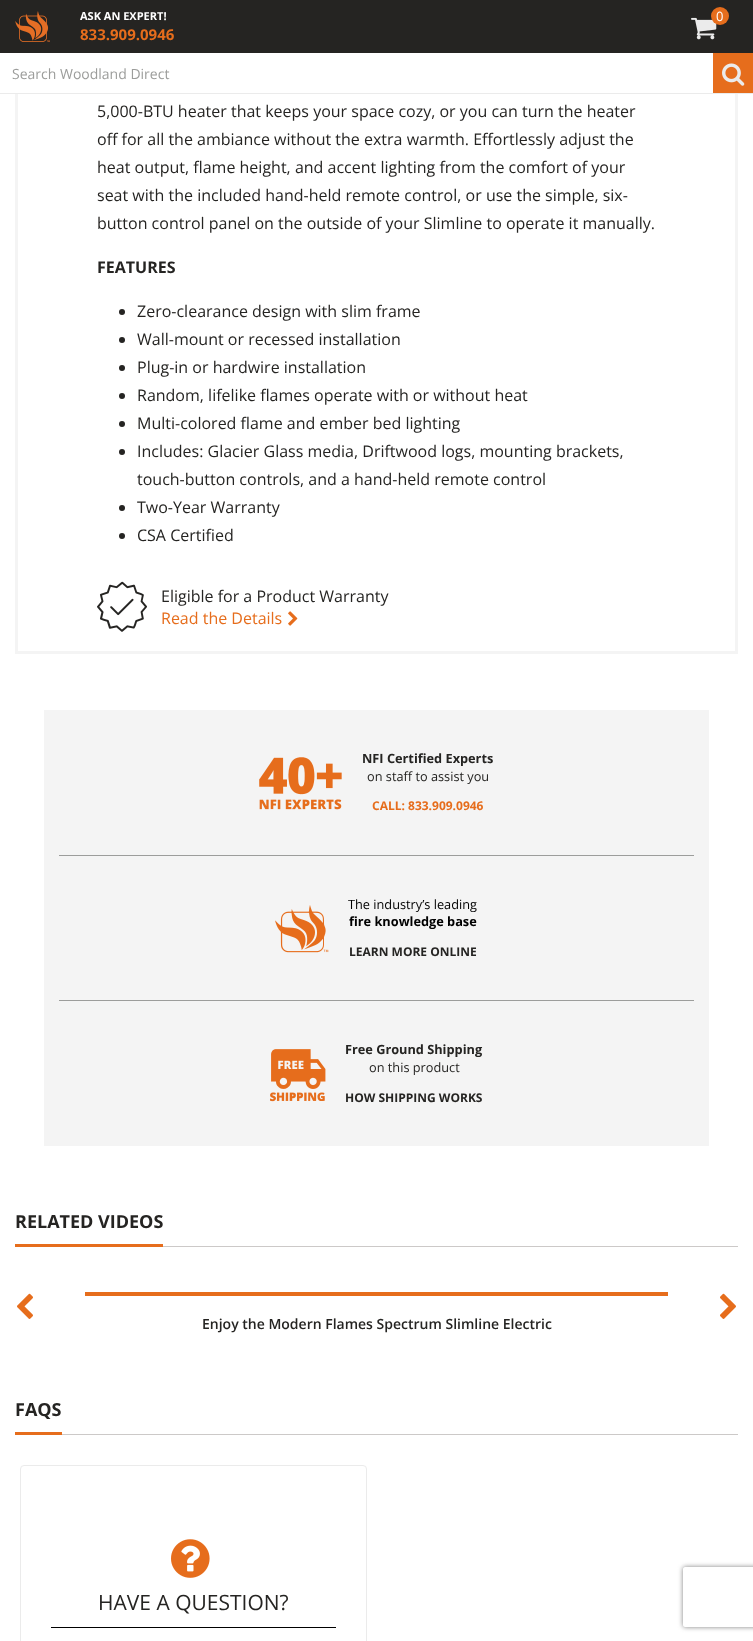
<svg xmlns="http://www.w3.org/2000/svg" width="753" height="1641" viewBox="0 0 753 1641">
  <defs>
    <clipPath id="clip1"><path d="M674 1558H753V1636H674ZM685 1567H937C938 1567 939 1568 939 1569V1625C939 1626 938 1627 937 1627H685C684 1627 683 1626 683 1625V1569C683 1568 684 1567 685 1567Z" clip-rule="evenodd"/></clipPath>
  </defs>
  <rect width="100%" height="100%" fill="#fff"/>
  <path d="M0 0h753v53H0z" fill="#252422"/>
  <image x="15" y="11" width="35" height="31" href="img/1.png"/>
  <image x="691" y="17" width="26" height="23" href="img/2.png"/>
  <circle cx="720" cy="16" r="9" fill="#e66d1c"/>
  <path d="M0 93h753v1H0z" fill="#ebebeb"/>
  <path d="M713 53h40v40H713z" fill="#e66d1c"/>
  <image x="722" y="63" width="23" height="23" href="img/3.png"/>
  <path d="M15 94h723v560H15z" fill="#f4f4f4"/>
  <path d="M18 94h717v557H18z" fill="#fff"/>
  <circle cx="122" cy="312" r="3" fill="#252422"/>
  <circle cx="122" cy="340" r="3" fill="#252422"/>
  <circle cx="122" cy="368" r="3" fill="#252422"/>
  <circle cx="122" cy="396" r="3" fill="#252422"/>
  <circle cx="122" cy="424" r="3" fill="#252422"/>
  <circle cx="122" cy="452" r="3" fill="#252422"/>
  <circle cx="122" cy="508" r="3" fill="#252422"/>
  <circle cx="122" cy="536" r="3" fill="#252422"/>
  <image x="97" y="581" width="50" height="51" href="img/4.png"/>
  <image x="288" y="611" width="10" height="15" href="img/5.png"/>
  <path d="M44 710h665v436H44z" fill="#f4f4f4"/>
  <path d="M59 855h635v1H59z" fill="#9c9d9b"/>
  <image x="259" y="757" width="83" height="53" href="img/6.png"/>
  <path d="M59 1000h635v1H59z" fill="#9c9d9b"/>
  <image x="275" y="905" width="54" height="48" href="img/7.png"/>
  <image x="270" y="1049" width="56" height="53" href="img/8.png"/>
  <path d="M163 1246h575v1H163z" fill="#ccc9c8"/>
  <path d="M15 1244h148v3H15z" fill="#e66d1c"/>
  <image x="17" y="1293" width="16" height="26" href="img/9.png"/>
  <image x="720" y="1293" width="16" height="26" href="img/10.png"/>
  <path d="M85 1292h583v4H85z" fill="#e66d1c"/>
  <path d="M62 1434h676v1H62z" fill="#ccc9c8"/>
  <path d="M15 1432h47v3H15z" fill="#e66d1c"/>
  <rect x="20.5" y="1465.5" width="346" height="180" rx="3.5" fill="none" stroke="#ebebeb"/>
  <image x="171" y="1539" width="39" height="39" href="img/11.png"/>
  <path d="M51 1627h285v1H51z" fill="#000"/>
  <g clip-path="url(#clip1)">
    <rect x="683" y="1567" width="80" height="60" rx="2" fill="#808080" filter="blur(2.5px)"/>
  </g>
  <text x="80" y="20" font-family="Open Sans" font-size="11" font-weight="bold" fill="#fff">ASK AN EXPERT!</text>
  <text x="80" y="40" font-family="Open Sans" font-size="15" font-weight="bold" fill="#e66d1c">833.909.0946</text>
  <text x="716" y="21" font-family="Open Sans" font-size="13" fill="#fff">0</text>
  <text x="12" y="79" font-family="Open Sans" font-size="14" fill="#9c9d9b">Search Woodland Direct</text>
  <g font-family="Open Sans" font-size="16" fill="#252422">
    <text x="97" y="117">5,000-BTU heater that keeps your space cozy, or you can turn the heater</text>
    <text x="97" y="145">off for all the ambiance without the extra warmth. Effortlessly adjust the</text>
    <text x="97" y="173">heat output, flame height, and accent lighting from the comfort of your</text>
    <text x="97" y="201">seat with the included hand-held remote control, or use the simple, six-</text>
    <text x="97" y="229">button control panel on the outside of your Slimline to operate it manually.</text>
  </g>
  <text x="97" y="273" font-family="Open Sans" font-size="16" font-weight="bold" fill="#252422">FEATURES</text>
  <g font-family="Open Sans" font-size="16" fill="#252422">
    <text x="137" y="317">Zero-clearance design with slim frame</text>
    <text x="137" y="345">Wall-mount or recessed installation</text>
    <text x="137" y="373">Plug-in or hardwire installation</text>
    <text x="137" y="401">Random, lifelike flames operate with or without heat</text>
    <text x="137" y="429">Multi-colored flame and ember bed lighting</text>
    <text x="137" y="457">Includes: Glacier Glass media, Driftwood logs, mounting brackets,</text>
    <text x="137" y="485">touch-button controls, and a hand-held remote control</text>
    <text x="137" y="513">Two-Year Warranty</text>
    <text x="137" y="541">CSA Certified</text>
    <text x="161" y="602">Eligible for a Product Warranty</text>
  </g>
  <text x="161" y="624" font-family="Open Sans" font-size="16" fill="#e66d1c">Read the Details</text>
  <text x="362" y="763" font-family="Open Sans" font-size="12.75" font-weight="bold" fill="#252422">NFI Certified Experts</text>
  <text x="367" y="781" font-family="Open Sans" font-size="12.75" fill="#252422">on staff to assist you</text>
  <text x="372" y="810" font-family="Open Sans" font-size="12" font-weight="bold" fill="#e66d1c">CALL: 833.909.0946</text>
  <text x="348" y="909" font-family="Open Sans" font-size="12.75" fill="#000">The industry’s leading</text>
  <text x="349" y="926" font-family="Open Sans" font-size="12.75" font-weight="bold" fill="#000">fire knowledge base</text>
  <text x="349" y="956" font-family="Open Sans" font-size="12" font-weight="bold" fill="#252422">LEARN MORE ONLINE</text>
  <text x="345" y="1054" font-family="Open Sans" font-size="12.75" font-weight="bold" fill="#252422">Free Ground Shipping</text>
  <text x="369" y="1072" font-family="Open Sans" font-size="12.75" fill="#252422">on this product</text>
  <text x="345" y="1102" font-family="Open Sans" font-size="12" font-weight="bold" fill="#252422">HOW SHIPPING WORKS</text>
  <text x="15" y="1228" font-family="Open Sans" font-size="18" font-weight="bold" fill="#252422">RELATED VIDEOS</text>
  <text x="202" y="1329" font-family="Open Sans" font-size="14" font-weight="600" fill="#252422">Enjoy the Modern Flames Spectrum Slimline Electric</text>
  <text x="15" y="1416" font-family="Open Sans" font-size="18" font-weight="bold" fill="#252422">FAQS</text>
  <text x="98" y="1610" font-family="Open Sans" font-size="21" fill="#252422">HAVE A QUESTION?</text>
</svg>
